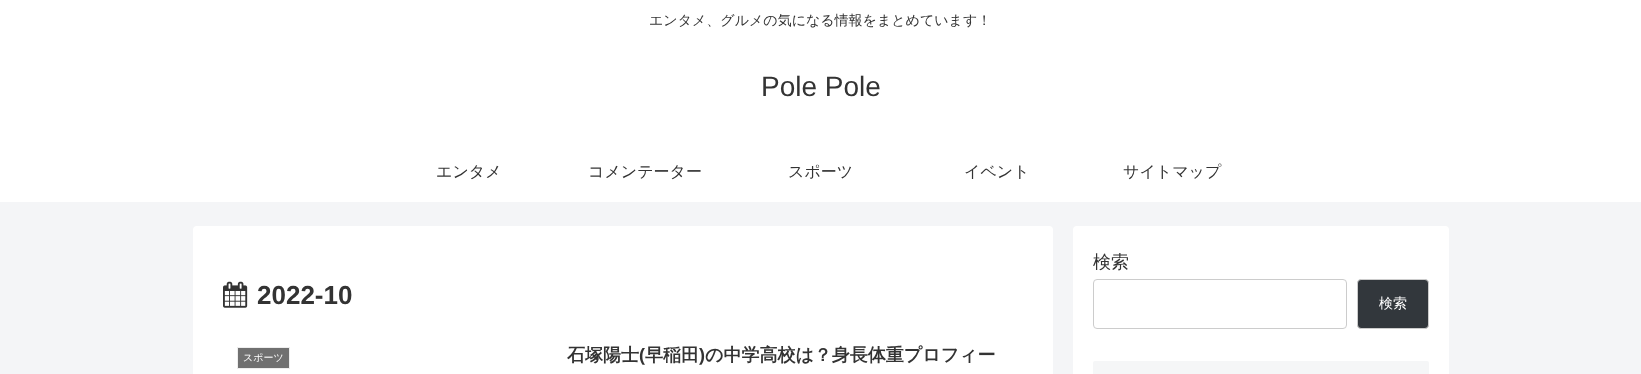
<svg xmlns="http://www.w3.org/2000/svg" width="1641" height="374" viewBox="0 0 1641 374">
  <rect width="100%" height="100%" fill="#f4f5f7"/>
  <path d="M0 0h1641v202H0z" fill="#fff"/>
  <rect x="193" y="226" width="860" height="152" rx="4" fill="#fff"/>
  <image x="223" y="281" width="25" height="27" href="img/1.png"/>
  <path d="M237.5 347.5h52v21H237.5z" fill="#707070" stroke="#eee"/>
  <rect x="1073" y="226" width="376" height="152" rx="4" fill="#fff"/>
  <rect x="1093.5" y="279.5" width="253" height="49" rx="3.5" fill="none" stroke="#ccc"/>
  <rect x="1357.5" y="279.5" width="71" height="49" rx="3.5" fill="#32373c" stroke="#ccc"/>
  <rect x="1093" y="361" width="336" height="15" rx="2" fill="#f5f6f7"/>
  <text x="649" y="25" font-family="WenQuanYi Zen Hei" font-size="14" font-weight="500" fill="#333">エンタメ、グルメの気になる情報をまとめています！</text>
  <text x="761" y="96" font-family="Liberation Sans" font-size="28" fill="#333">Pole Pole</text>
  <g font-family="WenQuanYi Zen Hei" font-size="16" font-weight="500" fill="#333">
    <text x="436" y="177">エンタメ</text>
    <text x="588" y="177">コメンテーター</text>
    <text x="788" y="177">スポーツ</text>
    <text x="964" y="177">イベント</text>
    <text x="1123" y="177">サイトマップ</text>
  </g>
  <text x="257" y="304" font-family="Liberation Sans" font-size="26" font-weight="bold" fill="#333">2022-10</text>
  <text x="243" y="361" font-family="WenQuanYi Zen Hei" font-size="10" font-weight="500" fill="#fff">スポーツ</text>
  <text x="567" y="361" font-family="WenQuanYi Zen Hei" font-size="18" font-weight="bold" fill="#333">石塚陽士</text>
  <text x="639" y="361" font-family="Liberation Sans" font-size="18" font-weight="bold" fill="#333">(</text>
  <text x="645" y="361" font-family="WenQuanYi Zen Hei" font-size="18" font-weight="bold" fill="#333">早稲田</text>
  <text x="699" y="361" font-family="Liberation Sans" font-size="18" font-weight="bold" fill="#333">)</text>
  <text x="705" y="361" font-family="WenQuanYi Zen Hei" font-size="18" font-weight="bold" fill="#333">の中学高校は？身長体重プロフィー</text>
  <text x="1093" y="268" font-family="WenQuanYi Zen Hei" font-size="18" font-weight="500" fill="#333">検索</text>
  <text x="1379" y="308" font-family="WenQuanYi Zen Hei" font-size="14" font-weight="500" fill="#fff">検索</text>
</svg>
